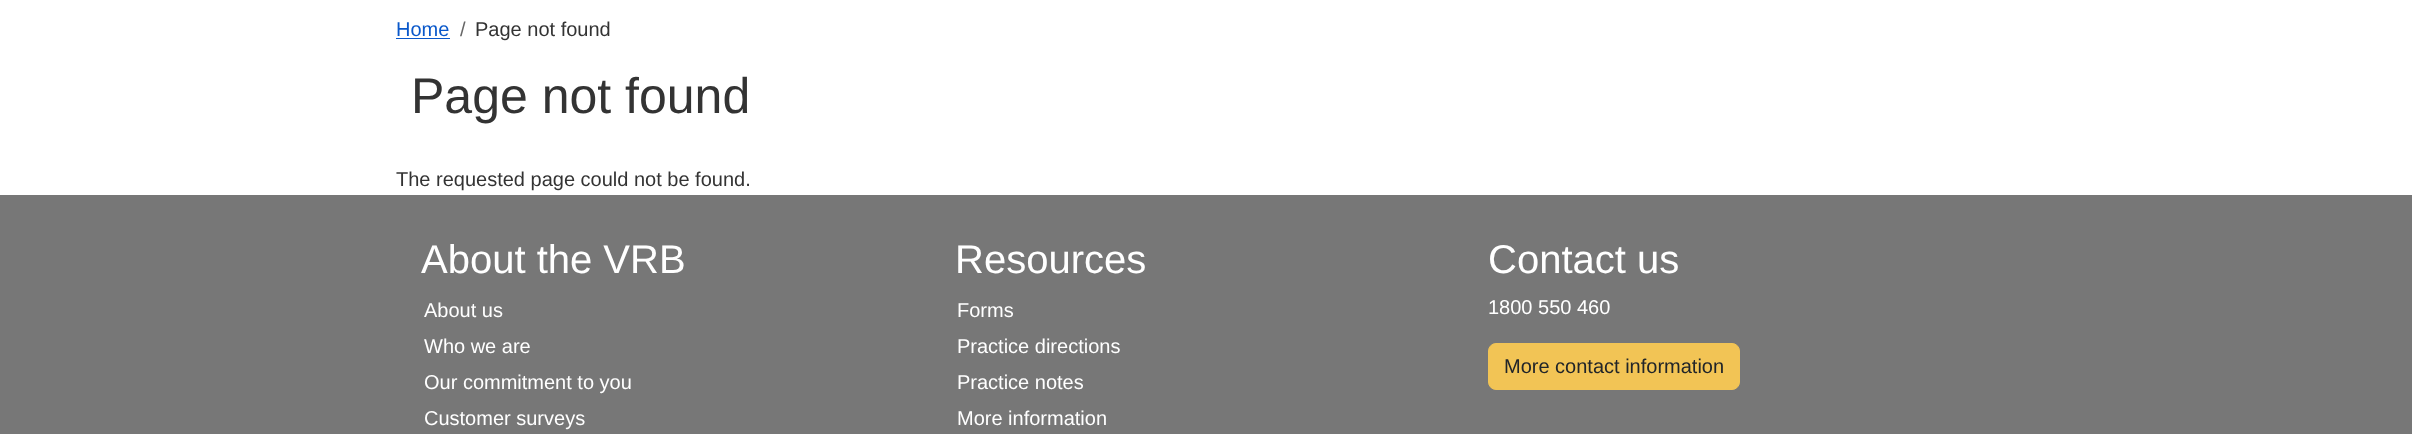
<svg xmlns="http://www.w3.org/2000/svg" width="2412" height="434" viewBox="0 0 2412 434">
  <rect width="100%" height="100%" fill="#fff"/>
  <path d="M396 38h54v1H396z" fill="#0a58ca"/>
  <path d="M0 195h2412v239H0z" fill="#777"/>
  <rect x="1488.5" y="343.5" width="251" height="46" rx="7.5" fill="#f2c455" stroke="#f2c455"/>
  <text x="396" y="36" font-family="Liberation Sans" font-size="20" fill="#0a58ca">Home</text>
  <text x="460" y="36" font-family="Liberation Sans" font-size="20" fill="#666">/</text>
  <text x="475" y="36" font-family="Liberation Sans" font-size="20" fill="#333">Page not found</text>
  <text x="411" y="113" font-family="Liberation Sans" font-size="50" fill="#333">Page not found</text>
  <text x="396" y="186" font-family="Liberation Sans" font-size="20" fill="#333">The requested page could not be found.</text>
  <text x="421" y="273" font-family="Liberation Sans" font-size="40" fill="#fff">About the VRB</text>
  <g font-family="Liberation Sans" font-size="20" fill="#fff">
    <text x="424" y="317">About us</text>
    <text x="424" y="353">Who we are</text>
    <text x="424" y="389">Our commitment to you</text>
    <text x="424" y="425">Customer surveys</text>
  </g>
  <text x="955" y="273" font-family="Liberation Sans" font-size="40" fill="#fff">Resources</text>
  <g font-family="Liberation Sans" font-size="20" fill="#fff">
    <text x="957" y="317">Forms</text>
    <text x="957" y="353">Practice directions</text>
    <text x="957" y="389">Practice notes</text>
    <text x="957" y="425">More information</text>
  </g>
  <text x="1488" y="273" font-family="Liberation Sans" font-size="40" fill="#fff">Contact us</text>
  <text x="1488" y="314" font-family="Liberation Sans" font-size="20" fill="#fff">1800 550 460</text>
  <text x="1504" y="373" font-family="Liberation Sans" font-size="20" fill="#212529">More contact information</text>
</svg>
